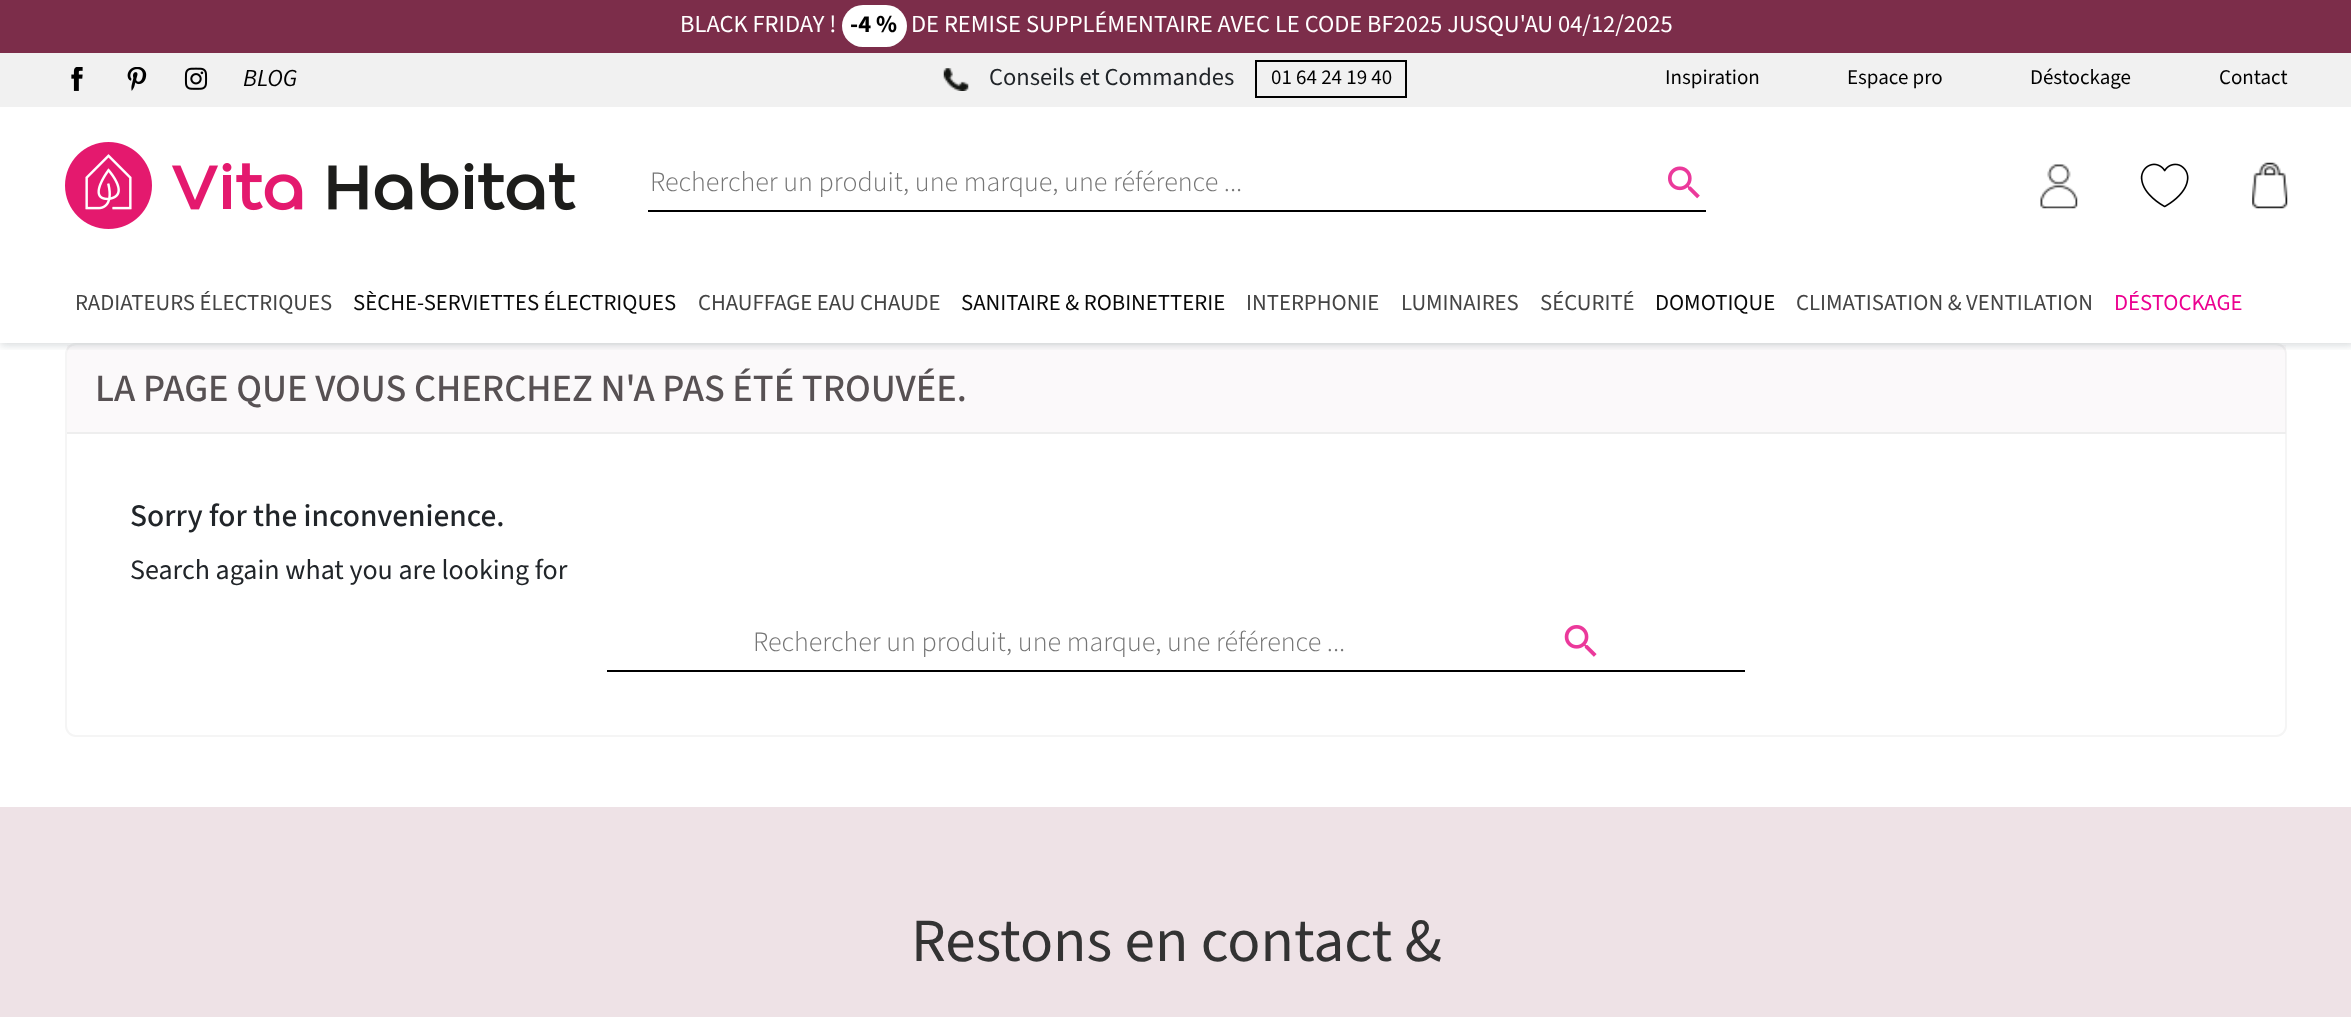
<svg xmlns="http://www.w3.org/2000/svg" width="2351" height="1017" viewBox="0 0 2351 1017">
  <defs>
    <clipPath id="clip1"><path d="M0 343h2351v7H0z"/></clipPath>
  </defs>
  <rect width="100%" height="100%" fill="#fff"/>
  <rect x="66" y="344" width="2220" height="392" rx="10" fill="none" stroke="#f5f5f5" stroke-width="2"/>
  <path d="M67 345h2219v87H67z" fill="#ddd1d621"/>
  <g clip-path="url(#clip1)">
    <path d="M0 0h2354v345H0z" fill="#051c2c2b" filter="blur(4px)"/>
  </g>
  <path d="M0 0h2351v53H0z" fill="#7c2d4a"/>
  <rect x="842" y="5" width="65" height="42" rx="21" fill="#fff"/>
  <path d="M0 53h2351v54H0z" fill="#f1f1f1"/>
  <image x="71" y="67" width="12" height="24" href="img/1.png"/>
  <image x="127" y="67" width="20" height="24" href="img/2.png"/>
  <image x="184" y="67" width="24" height="23" href="img/3.png"/>
  <image x="943" y="68" width="26" height="23" href="img/4.png"/>
  <path d="M1256 61h150v36H1256z" fill="none" stroke="#000" stroke-width="2"/>
  <image x="65" y="142" width="511" height="87" href="img/5.png"/>
  <path d="M648 210h1058v2H648z" fill="#000"/>
  <image x="1668" y="166" width="32" height="33" href="img/6.png"/>
  <image x="2040" y="164" width="38" height="45" href="img/7.png"/>
  <image x="2140" y="163" width="49" height="45" href="img/8.png"/>
  <image x="2252" y="162" width="36" height="47" href="img/9.png"/>
  <path d="M67 432h2219v2H67z" fill="#eee"/>
  <path d="M607 670h1138v2H607z" fill="#000"/>
  <image x="1564" y="625" width="33" height="32" href="img/10.png"/>
  <path d="M0 807h2351v210H0z" fill="#eee2e6"/>
  <text x="680" y="32" font-family="'Source Sans 3'" font-size="24.5" fill="#fff">BLACK FRIDAY !</text>
  <text x="850" y="32" font-family="'Source Sans 3'" font-size="24.5" font-weight="bold" fill="#000">-4 %</text>
  <text x="911" y="32" font-family="'Source Sans 3'" font-size="24.5" fill="#fff">DE REMISE SUPPLÉMENTAIRE AVEC LE CODE BF2025 JUSQU'AU 04/12/2025</text>
  <text x="243" y="86" font-family="'Source Sans 3'" font-size="24.5" font-style="italic" fill="#000">BLOG</text>
  <text x="989" y="85" font-family="'Source Sans 3'" font-size="24.5" fill="#212529">Conseils et Commandes</text>
  <g font-family="'Source Sans 3'" font-size="21" fill="#000">
    <text x="1271" y="84">01 64 24 19 40</text>
    <text x="1665" y="84">Inspiration</text>
    <text x="1847" y="84">Espace pro</text>
    <text x="2030" y="84">Déstockage</text>
    <text x="2219" y="84">Contact</text>
  </g>
  <text x="650" y="191" font-family="'Source Sans 3'" font-size="28" font-weight="300" fill="#757575">Rechercher un produit, une marque, une référence ...</text>
  <text x="75" y="310" font-family="'Source Sans 3'" font-size="22.75" fill="#444">RADIATEURS ÉLECTRIQUES</text>
  <text x="353" y="310" font-family="'Source Sans 3'" font-size="22.75" fill="#080808">SÈCHE-SERVIETTES ÉLECTRIQUES</text>
  <text x="698" y="310" font-family="'Source Sans 3'" font-size="22.75" fill="#444">CHAUFFAGE EAU CHAUDE</text>
  <text x="961" y="310" font-family="'Source Sans 3'" font-size="22.75" fill="#080808">SANITAIRE &amp; ROBINETTERIE</text>
  <g font-family="'Source Sans 3'" font-size="22.75" fill="#444">
    <text x="1246" y="310">INTERPHONIE</text>
    <text x="1401" y="310">LUMINAIRES</text>
    <text x="1540" y="310">SÉCURITÉ</text>
  </g>
  <text x="1655" y="310" font-family="'Source Sans 3'" font-size="22.75" fill="#080808">DOMOTIQUE</text>
  <text x="1796" y="310" font-family="'Source Sans 3'" font-size="22.75" fill="#444">CLIMATISATION &amp; VENTILATION</text>
  <text x="2114" y="310" font-family="'Source Sans 3'" font-size="22.75" fill="#ec0090">DÉSTOCKAGE</text>
  <text x="95" y="401" font-family="'Source Sans 3'" font-size="38.5" font-weight="500" fill="#575153">LA PAGE QUE VOUS CHERCHEZ N'A PAS ÉTÉ TROUVÉE.</text>
  <text x="130" y="526" font-family="'Source Sans 3'" font-size="31.5" font-weight="500" fill="#212529">Sorry for the inconvenience.</text>
  <text x="130" y="579" font-family="'Source Sans 3'" font-size="28" fill="#212529">Search again what you are looking for</text>
  <text x="753" y="651" font-family="'Source Sans 3'" font-size="28" font-weight="300" fill="#757575">Rechercher un produit, une marque, une référence ...</text>
  <text x="911" y="961" font-family="'Source Sans 3'" font-size="61.25" fill="#333">Restons en contact &amp;</text>
</svg>
